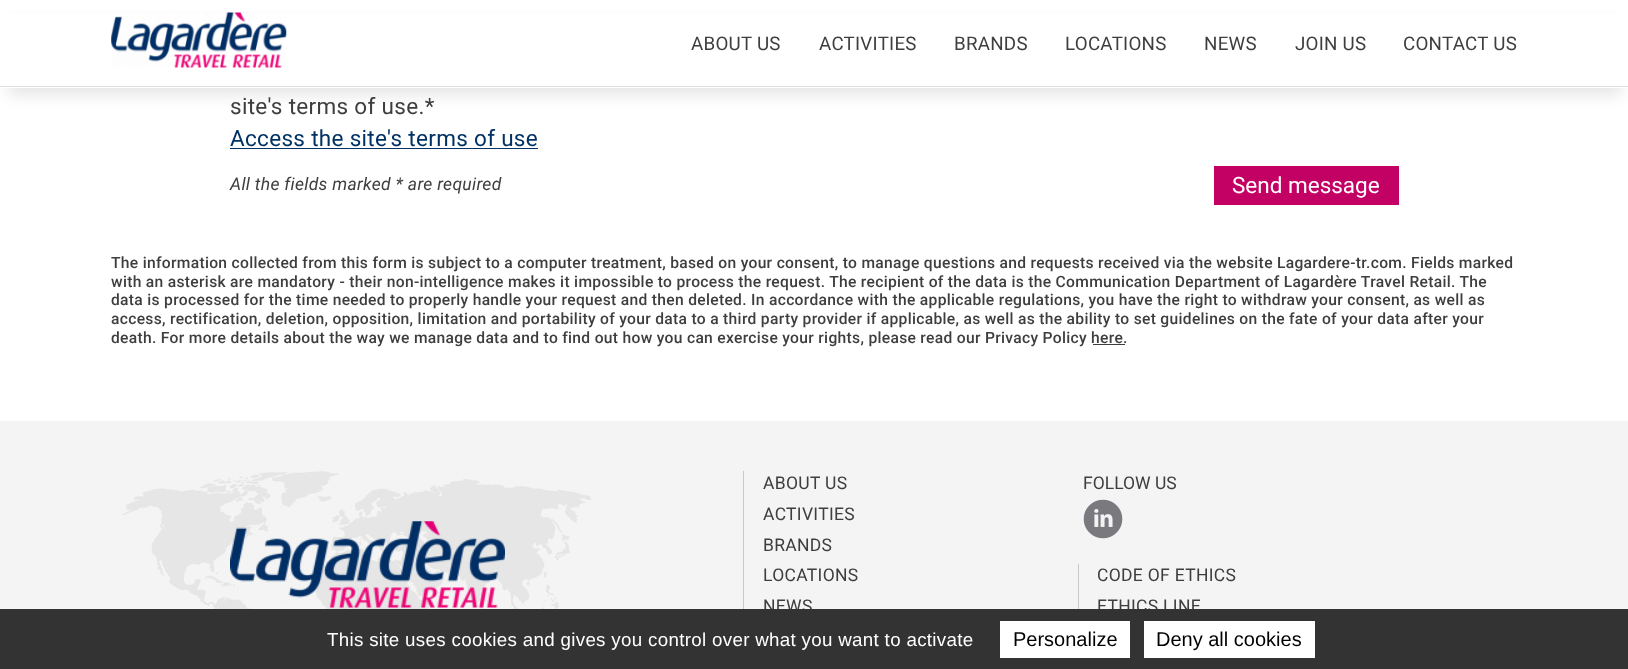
<svg xmlns="http://www.w3.org/2000/svg" width="1628" height="669" viewBox="0 0 1628 669">
  <rect width="100%" height="100%" fill="#fff"/>
  <path d="M8 23h1613v72H8z" fill="#0000001a" filter="blur(7.5px)"/>
  <path d="M0 13h1628v75H0z" fill="#fff"/>
  <path d="M0 86h1628v1H0z" fill="#ddd"/>
  <image x="111" y="12" width="176" height="56" href="img/1.png"/>
  <path d="M230 148h308v1H230z" fill="#003264"/>
  <path d="M1214 166h185v39H1214z" fill="#c30064"/>
  <path d="M1093 344h32v1H1093z" fill="#3e3e3e"/>
  <path d="M0 421h1628v188H0z" fill="#f4f4f4"/>
  <image x="122" y="471" width="470" height="138" href="img/2.png"/>
  <image x="230" y="521" width="275" height="87" href="img/3.png"/>
  <path d="M743 471h1v138H743z" fill="#c8c8c8"/>
  <image x="1083" y="499" width="40" height="40" href="img/4.png"/>
  <path d="M1078 564h1v45H1078z" fill="#c8c8c8"/>
  <g font-family="Roboto" font-size="18.75" letter-spacing="0.25" fill="#3e3e3e">
    <text x="691" y="50">ABOUT US</text>
    <text x="819" y="50">ACTIVITIES</text>
    <text x="954" y="50">BRANDS</text>
    <text x="1065" y="50">LOCATIONS</text>
    <text x="1204" y="50">NEWS</text>
    <text x="1295" y="50">JOIN US</text>
    <text x="1403" y="50">CONTACT US</text>
  </g>
  <text x="230" y="114" font-family="Roboto" font-size="22.5" letter-spacing="0.31" fill="#3e3e3e">site's terms of use.*</text>
  <text x="230" y="146" font-family="Roboto" font-size="22.5" letter-spacing="0.31" fill="#003264">Access the site's terms of use</text>
  <text x="230" y="190" font-family="Roboto" font-size="17.5" font-style="italic" letter-spacing="0.31" fill="#3e3e3e">All the fields marked * are required</text>
  <text x="1232" y="193" font-family="Roboto" font-size="22.5" fill="#fff">Send message</text>
  <g font-family="Roboto" font-size="15.62" font-weight="500" letter-spacing="0.31" fill="#3e3e3e">
    <text x="111" y="268">The information collected from this form is subject to a computer treatment, based on your consent, to manage questions and requests received via the website Lagardere-tr.com. Fields marked</text>
    <text x="111" y="287">with an asterisk are mandatory - their non-intelligence makes it impossible to process the request. The recipient of the data is the Communication Department of Lagardère Travel Retail. The</text>
    <text x="111" y="305">data is processed for the time needed to properly handle your request and then deleted. In accordance with the applicable regulations, you have the right to withdraw your consent, as well as</text>
    <text x="111" y="324">access, rectification, deletion, opposition, limitation and portability of your data to a third party provider if applicable, as well as the ability to set guidelines on the fate of your data after your</text>
    <text x="111" y="343">death. For more details about the way we manage data and to find out how you can exercise your rights, please read our Privacy Policy here.</text>
  </g>
  <g font-family="Roboto" font-size="17.5" letter-spacing="0.31" fill="#3e3e3e">
    <text x="763" y="489">ABOUT US</text>
    <text x="763" y="520">ACTIVITIES</text>
    <text x="763" y="551">BRANDS</text>
    <text x="763" y="581">LOCATIONS</text>
    <text x="763" y="612">NEWS</text>
  </g>
  <text x="1083" y="489" font-family="Roboto" font-size="17.5" fill="#3e3e3e">FOLLOW US</text>
  <g font-family="Roboto" font-size="17.5" letter-spacing="0.31" fill="#3e3e3e">
    <text x="1097" y="581">CODE OF ETHICS</text>
    <text x="1097" y="612">ETHICS LINE</text>
  </g>
  <path d="M0 609h1628v60H0z" fill="#333"/>
  <text x="327" y="646" font-family="Liberation Sans" font-size="18.75" letter-spacing="0.31" fill="#fff">This site uses cookies and gives you control over what you want to activate</text>
  <path d="M1000 621h130v37H1000z" fill="#fff"/>
  <text x="1013" y="646" font-family="Liberation Sans" font-size="20" fill="#000">Personalize</text>
  <path d="M1144 621h171v37H1144z" fill="#fff"/>
  <text x="1156" y="646" font-family="Liberation Sans" font-size="20" fill="#000">Deny all cookies</text>
</svg>
